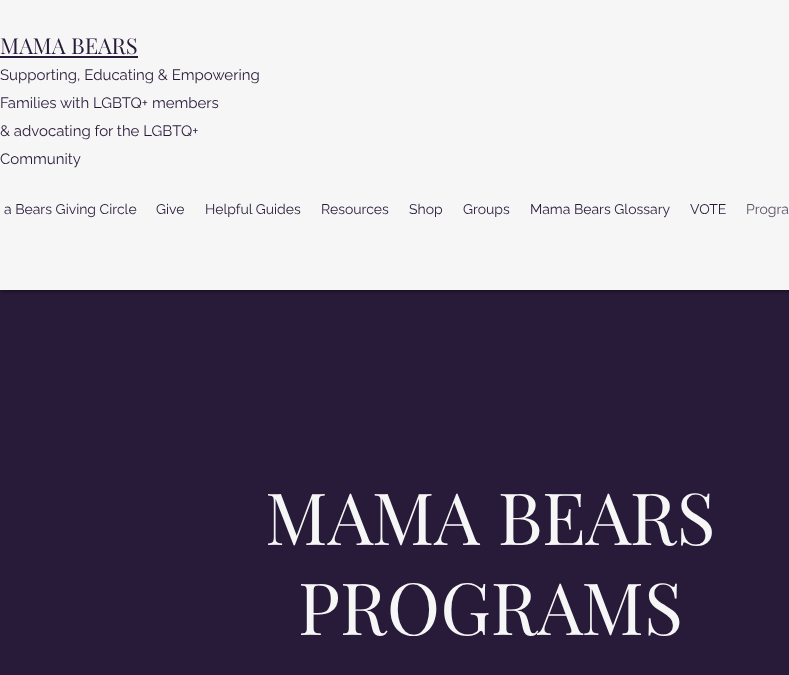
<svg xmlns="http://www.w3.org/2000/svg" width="789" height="675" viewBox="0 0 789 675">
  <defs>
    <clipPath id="clip1"><path d="M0 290h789v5H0z"/></clipPath>
  </defs>
  <rect width="100%" height="100%" fill="#f6f6f6"/>
  <path d="M0 290h789v385H0z" fill="#281a39"/>
  <g clip-path="url(#clip1)">
    <path d="M0 0h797v290H0z" fill="#000000b3" filter="blur(2.5px)"/>
  </g>
  <path d="M0 56h138v2H0z" fill="#281a39"/>
  <text x="0" y="54" font-family="Playfair Display" font-size="22" fill="#281a39">MAMA BEARS</text>
  <g font-family="Raleway" font-size="15" fill="#281a39">
    <text x="0" y="80">Supporting, Educating &amp; Empowering</text>
    <text x="0" y="108">Families with LGBTQ+ members</text>
    <text x="0" y="136">&amp; advocating for the LGBTQ+</text>
    <text x="0" y="164">Community</text>
  </g>
  <g font-family="Raleway" font-size="14" fill="#281a39">
    <text x="4" y="214">a Bears Giving Circle</text>
    <text x="156" y="214">Give</text>
    <text x="205" y="214">Helpful Guides</text>
    <text x="321" y="214">Resources</text>
    <text x="409" y="214">Shop</text>
    <text x="463" y="214">Groups</text>
    <text x="530" y="214">Mama Bears Glossary</text>
    <text x="690" y="214">VOTE</text>
  </g>
  <text x="746" y="214" font-family="Raleway" font-size="14" fill="#5c5168">Progra</text>
  <g font-family="Playfair Display" font-size="72" fill="#f6f6f6">
    <text x="265" y="545">MAMA BEARS</text>
    <text x="298" y="635">PROGRAMS</text>
  </g>
</svg>
